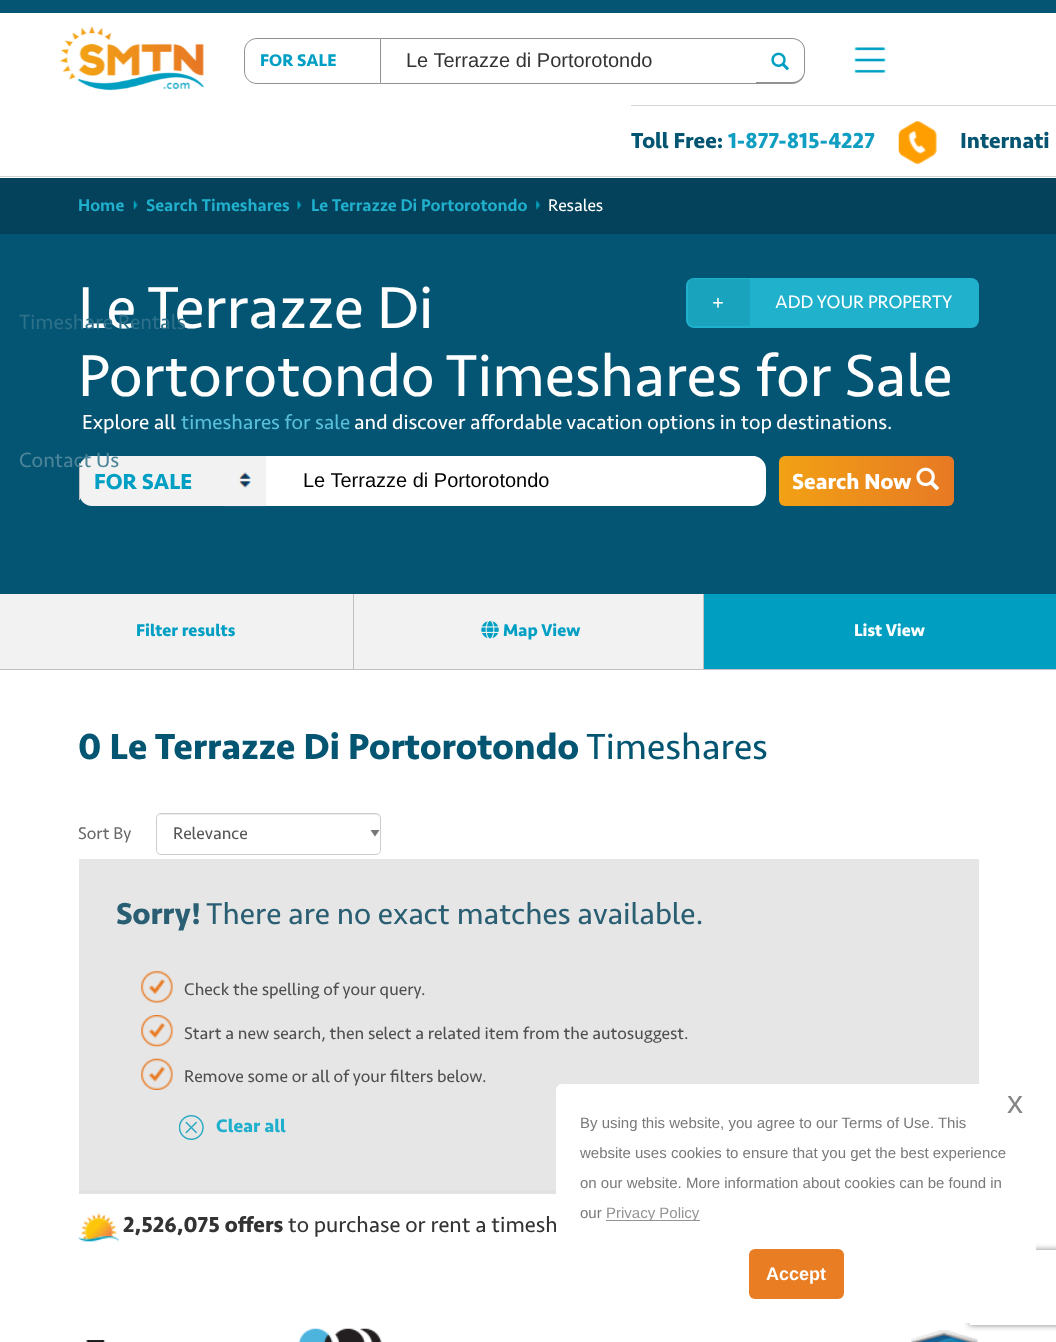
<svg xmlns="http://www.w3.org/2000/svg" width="1056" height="1342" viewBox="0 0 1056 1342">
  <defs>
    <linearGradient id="g1" gradientUnits="userSpaceOnUse" x1="779" y1="481" x2="954" y2="481"><stop offset="0" stop-color="#f2a114"/><stop offset="1" stop-color="#e77924"/></linearGradient>
    <clipPath id="clip1"><path d="M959 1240H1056V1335H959ZM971.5 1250H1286.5C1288 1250 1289 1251 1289 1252.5V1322.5C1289 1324 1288 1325 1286.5 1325H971.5C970 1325 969 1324 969 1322.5V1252.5C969 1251 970 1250 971.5 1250Z" clip-rule="evenodd"/></clipPath>
  </defs>
  <rect width="100%" height="100%" fill="#fff"/>
  <path d="M0 0h1056v13H0z" fill="#035573"/>
  <path d="M0 176h1056v1H0z" fill="#d0d3d9"/>
  <image x="59" y="26" width="146" height="65" href="img/1.png"/>
  <path d="M257 38.5H380.5V83.5H257C250 83.5 244.5 78 244.5 71V51C244.5 44 250 38.5 257 38.5Z" fill="none" stroke="#919191"/>
  <path d="M381 38h375v1H381z" fill="#919191"/>
  <path d="M381 83h375v1H381z" fill="#919191"/>
  <path d="M756 38H792C799 38 805 43 805 50V71C805 78 799 84 792 84H756ZM756 39H792C799 39 804 44 804 50V71C804 77 799 82 792 82H756Z" fill="#919191" fill-rule="evenodd"/>
  <image x="771" y="52" width="18" height="18" href="img/2.png"/>
  <image x="854" y="47" width="32" height="26" href="img/3.png"/>
  <path d="M631 105h425v1H631z" fill="#d6d6d6"/>
  <image x="898" y="121" width="39" height="43" href="img/4.png"/>
  <path d="M0 178h1056v56H0z" fill="#03425a"/>
  <image x="133" y="200" width="5" height="10" href="img/5.png"/>
  <image x="297" y="200" width="5" height="10" href="img/6.png"/>
  <image x="536" y="200" width="4" height="10" href="img/7.png"/>
  <path d="M0 234h1056v360H0z" fill="#045573"/>
  <rect x="686" y="278" width="293" height="50" rx="8" fill="#20b1cc"/>
  <path d="M694 279H750V326H694C690.5 326 688 323.5 688 320V285C688 281.5 690.5 279 694 279Z" fill="#19a3bd"/>
  <image x="712" y="297" width="11" height="11" href="img/8.png"/>
  <path d="M92 456H266V506H92C85 506 79 500 79 493V469C79 462 85 456 92 456Z" fill="#f2f2f2"/>
  <image x="224" y="456" width="42" height="51" href="img/9.png"/>
  <path d="M79 463h1v37H79z" fill="#c0c0c0"/>
  <path d="M266 456H753C760 456 766 462 766 469V493C766 500 760 506 753 506H266Z" fill="#fff"/>
  <rect x="779" y="456" width="175" height="50" rx="6" fill="url(#g1)"/>
  <image x="916" y="467" width="23" height="24" href="img/10.png"/>
  <path d="M0 594h353v75H0z" fill="#f2f2f2"/>
  <path d="M0 669h353v1H0z" fill="#c0c0c0"/>
  <path d="M354 594h349v75H354z" fill="#f2f2f2"/>
  <path d="M703 594h1v76H703z" fill="#c0c0c0"/>
  <path d="M353 669h703v1H353z" fill="#c0c0c0"/>
  <path d="M353 594h1v76H353z" fill="#c0c0c0"/>
  <image x="481" y="621" width="18" height="18" href="img/11.png"/>
  <path d="M704 594h352v75H704z" fill="#009fc2"/>
  <path d="M375 836.5L370.5 830H379.5Z" fill="#777"/>
  <path d="M161 815H376C378 815 380 817 380 819C380 816 379 814 376 814H162C159 814 158 816 158 819C158 817 159 815 161 815Z" fill="#ececec"/>
  <rect x="156.5" y="813.5" width="224" height="41" rx="4.5" fill="none" stroke="#ccc"/>
  <path d="M79 859h900v331H79z" fill="#e6e6e6"/>
  <path d="M79 1190h477v4H79z" fill="#e2e2e2"/>
  <image x="141" y="971" width="32" height="32" href="img/12.png"/>
  <image x="141" y="1015" width="32" height="32" href="img/13.png"/>
  <image x="141" y="1058" width="32" height="32" href="img/14.png"/>
  <image x="179" y="1115" width="25" height="25" href="img/15.png"/>
  <image x="78" y="1212" width="41" height="30" href="img/16.png"/>
  <image x="86" y="1340" width="20" height="2" href="img/17.png"/>
  <image x="298" y="1328" width="84" height="14" href="img/18.png"/>
  <image x="911" y="1330" width="67" height="12" href="img/19.png"/>
  <g clip-path="url(#clip1)">
    <rect x="969" y="1250" width="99" height="75" rx="2.5" fill="#808080" filter="blur(3px)"/>
  </g>
  <text x="260" y="66" font-family="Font" font-size="17.5" font-weight="bold" fill="#019fc4">FOR SALE</text>
  <text x="406" y="67" font-family="Liberation Sans" font-size="20" fill="#333">Le Terrazze di Portorotondo</text>
  <text x="631" y="148" font-family="Font" font-size="22.5" font-weight="bold" fill="#045572">Toll Free:</text>
  <text x="728" y="148" font-family="Font" font-size="22.5" font-weight="bold" fill="#109fc2">1-877-815-4227</text>
  <text x="960" y="148" font-family="Font" font-size="22.5" font-weight="bold" fill="#045572">Internati</text>
  <g font-family="Font" font-size="17.5" font-weight="600" fill="#20b0cd">
    <text x="78" y="211">Home</text>
    <text x="146" y="211">Search Timeshares</text>
    <text x="311" y="211">Le Terrazze Di Portorotondo</text>
  </g>
  <text x="548" y="211" font-family="Font" font-size="17.5" fill="#fff">Resales</text>
  <text x="78" y="328" font-family="Font" font-size="61.25" fill="#fff">Le Terrazze Di</text>
  <text x="775" y="308" font-family="Font" font-size="18.75" fill="#fff">ADD YOUR PROPERTY</text>
  <text x="78" y="396" font-family="Font" font-size="61.25" fill="#fff">Portorotondo Timeshares for Sale</text>
  <text x="82" y="429" font-family="Font" font-size="21" fill="#fff">Explore all</text>
  <text x="181" y="429" font-family="Font" font-size="21" fill="#59beda">timeshares for sale</text>
  <text x="354" y="429" font-family="Font" font-size="21" fill="#fff">and discover affordable vacation options in top destinations.</text>
  <text x="94" y="489" font-family="Font" font-size="22.5" font-weight="bold" fill="#019fc4">FOR SALE</text>
  <text x="303" y="487" font-family="Liberation Sans" font-size="20" fill="#000">Le Terrazze di Portorotondo</text>
  <text x="792" y="489" font-family="Font" font-size="22.5" font-weight="bold" fill="#fff">Search Now</text>
  <g font-family="Font" font-size="17.5" font-weight="bold" fill="#019fc4">
    <text x="136" y="636">Filter results</text>
    <text x="503" y="636">Map View</text>
  </g>
  <text x="854" y="636" font-family="Font" font-size="17.5" font-weight="bold" fill="#fff">List View</text>
  <text x="78" y="759" font-family="Font" font-size="37.5" font-weight="bold" fill="#045572">0 Le Terrazze Di Portorotondo</text>
  <text x="586" y="759" font-family="Font" font-size="37.5" fill="#045572">Timeshares</text>
  <text x="78" y="839" font-family="Font" font-size="17.5" fill="#696969">Sort By</text>
  <text x="173" y="839" font-family="Font" font-size="17.5" fill="#555">Relevance</text>
  <text x="116" y="924" font-family="Font" font-size="31.25" font-weight="bold" fill="#2a5e73">Sorry!</text>
  <text x="206" y="924" font-family="Font" font-size="31.25" fill="#2a5e73">There are no exact matches available.</text>
  <g font-family="Font" font-size="17.5" fill="#4f4f4f">
    <text x="184" y="995">Check the spelling of your query.</text>
    <text x="184" y="1039">Start a new search, then select a related item from the autosuggest.</text>
    <text x="184" y="1082">Remove some or all of your filters below.</text>
  </g>
  <text x="216" y="1132" font-family="Font" font-size="18.75" font-weight="bold" fill="#20b0cd">Clear all</text>
  <text x="123" y="1232" font-family="Font" font-size="22.5" font-weight="bold" fill="#333">2,526,075 offers</text>
  <text x="288" y="1232" font-family="Font" font-size="22.5" fill="#333">to purchase or rent a timesh</text>
  <text x="19" y="329" font-family="Font" font-size="21.25" fill="#2c7089">Timeshare Rentals</text>
  <text x="19" y="467" font-family="Font" font-size="21.25" fill="#4c8499">Contact Us</text>
  <rect x="556" y="1084" width="480" height="239" rx="6" fill="#fff"/>
  <text x="1007" y="1113" font-family="Liberation Sans" font-size="32" fill="#868686">x</text>
  <g font-family="Liberation Sans" font-size="15" fill="#797979">
    <text x="580" y="1128">By using this website, you agree to our Terms of Use. This</text>
    <text x="580" y="1158">website uses cookies to ensure that you get the best experience</text>
    <text x="580" y="1188">on our website. More information about cookies can be found in</text>
    <text x="580" y="1218">our</text>
  </g>
  <path d="M606 1220h94v1H606z" fill="#949494"/>
  <text x="606" y="1218" font-family="Liberation Sans" font-size="15" fill="#949494">Privacy Policy</text>
  <rect x="749" y="1249" width="95" height="50" rx="6" fill="#e87d23"/>
  <text x="766" y="1280" font-family="Liberation Sans" font-size="18" font-weight="bold" fill="#fff">Accept</text>
</svg>
